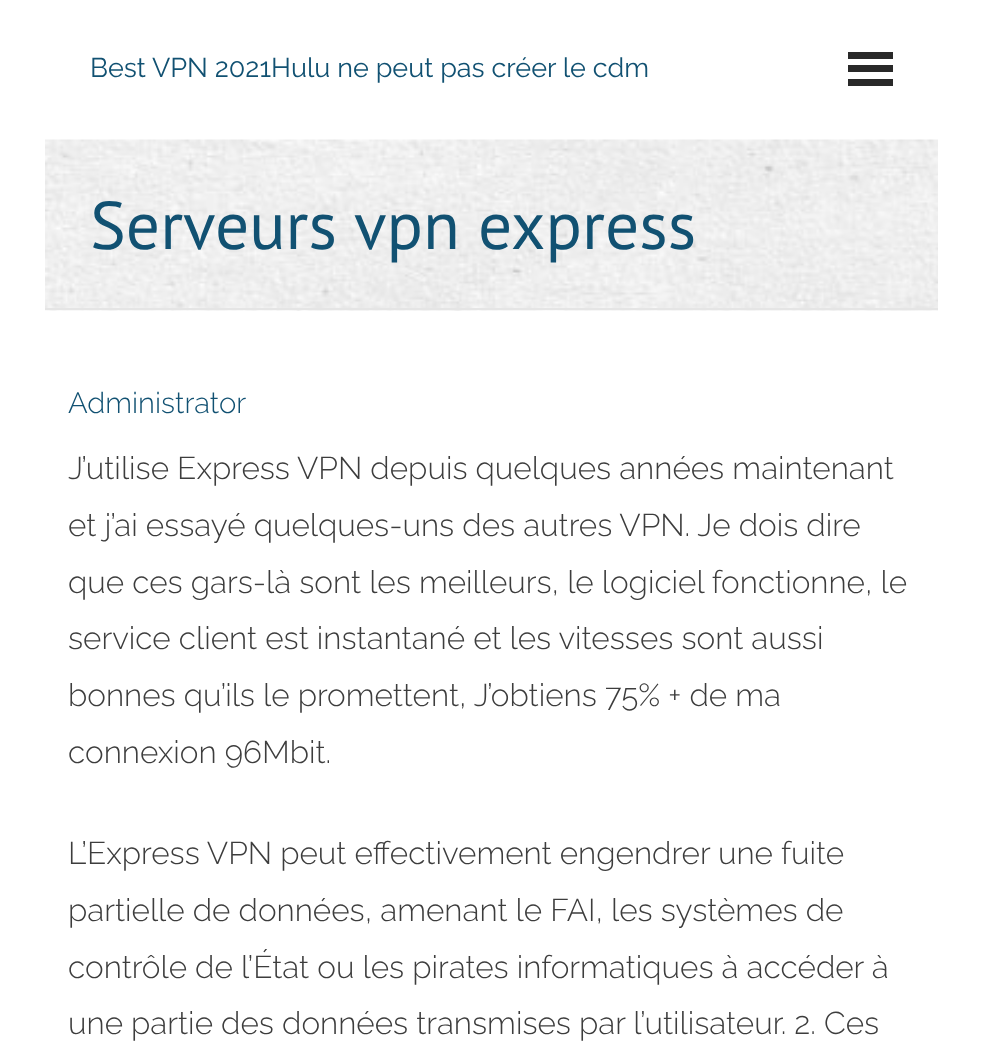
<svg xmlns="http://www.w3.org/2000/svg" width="983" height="1041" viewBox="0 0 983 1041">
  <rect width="100%" height="100%" fill="#fff"/>
  <path d="M848 52h45v7H848z" fill="#292929"/>
  <path d="M848 65h45v7H848z" fill="#292929"/>
  <path d="M848 79h45v7H848z" fill="#292929"/>
  <image x="45" y="139" width="893" height="172" href="img/1.png"/>
  <path d="M45 308h893v2H45z" fill="#e5e5e5"/>
  <text x="90" y="77" font-family="Raleway" font-size="27" fill="#115172">Best VPN 2021Hulu ne peut pas créer le cdm</text>
  <text x="90" y="249" font-family="PT Sans" font-size="67.5" fill="#115172">Serveurs vpn express</text>
  <text x="68" y="413" font-family="Raleway" font-size="29.25" font-weight="300" fill="#115172">Administrator</text>
  <g font-family="Raleway" font-size="31.5" font-weight="300" fill="#3d3d3d">
    <text x="68" y="479">J’utilise Express VPN depuis quelques années maintenant</text>
    <text x="68" y="536">et j’ai essayé quelques-uns des autres VPN. Je dois dire</text>
    <text x="68" y="593">que ces gars-là sont les meilleurs, le logiciel fonctionne, le</text>
    <text x="68" y="649">service client est instantané et les vitesses sont aussi</text>
    <text x="68" y="706">bonnes qu’ils le promettent, J’obtiens 75% + de ma</text>
    <text x="68" y="763">connexion 96Mbit.</text>
    <text x="68" y="864">L’Express VPN peut effectivement engendrer une fuite</text>
    <text x="68" y="921">partielle de données, amenant le FAI, les systèmes de</text>
    <text x="68" y="978">contrôle de l’État ou les pirates informatiques à accéder à</text>
    <text x="68" y="1034">une partie des données transmises par l’utilisateur. 2. Ces</text>
  </g>
</svg>
